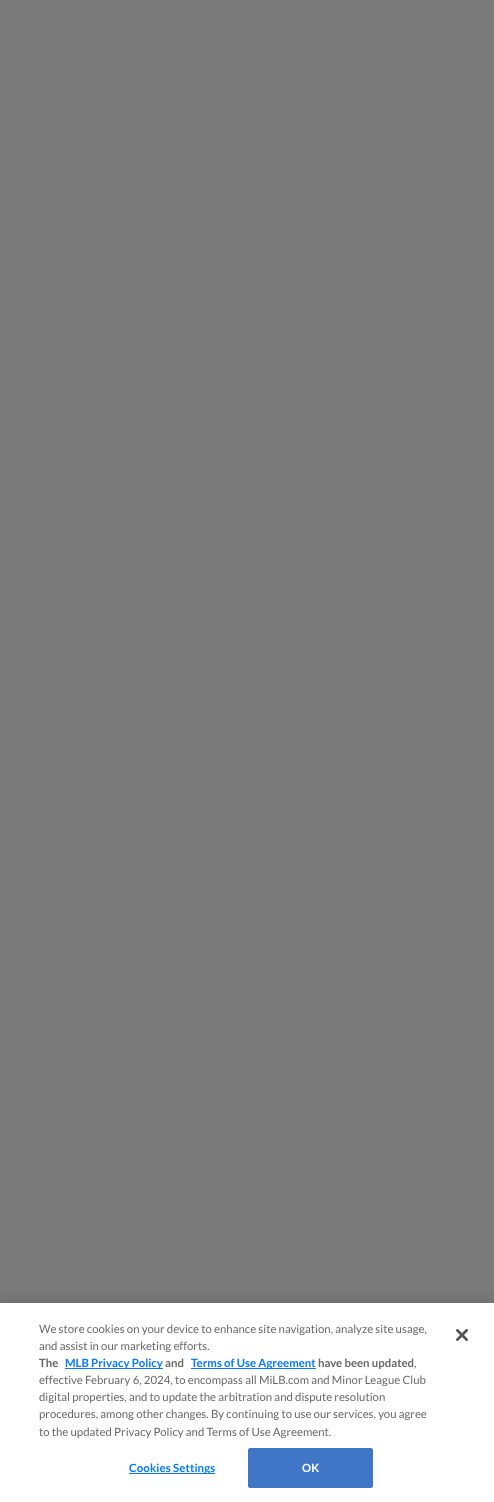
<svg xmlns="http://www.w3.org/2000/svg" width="494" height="1502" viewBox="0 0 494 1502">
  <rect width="100%" height="100%" fill="#7b7b7b"/>
  <path d="M0 1303h494v199H0z" fill="#00000033" filter="blur(9px)"/>
  <path d="M0 1303h494v199H0z" fill="#fff"/>
  <path d="M65 1368h98v1H65z" fill="#057aff"/>
  <path d="M191 1368h125v1H191z" fill="#057aff"/>
  <path d="M129 1473h86v1H129z" fill="#057aff"/>
  <rect x="248.5" y="1448.5" width="124" height="39" rx="1.5" fill="#4076c7" stroke="#4076c7"/>
  <image x="456" y="1329" width="12" height="12" href="img/1.png"/>
  <g font-family="Lato" font-size="11.4" fill="#696969">
    <text x="39" y="1333">We store cookies on your device to enhance site navigation, analyze site usage,</text>
    <text x="39" y="1350">and assist in our marketing efforts.</text>
  </g>
  <text x="39" y="1367" font-family="Lato" font-size="11.4" font-weight="bold" fill="#696969">The</text>
  <text x="65" y="1367" font-family="Lato" font-size="11.4" font-weight="bold" fill="#057aff">MLB Privacy Policy</text>
  <text x="165" y="1367" font-family="Lato" font-size="11.4" font-weight="bold" fill="#696969">and</text>
  <text x="191" y="1367" font-family="Lato" font-size="11.4" font-weight="bold" fill="#057aff">Terms of Use Agreement</text>
  <text x="318" y="1367" font-family="Lato" font-size="11.4" font-weight="bold" fill="#696969">have been updated</text>
  <g font-family="Lato" font-size="11.4" fill="#696969">
    <text x="414" y="1367">,</text>
    <text x="39" y="1384">effective February 6, 2024, to encompass all MiLB.com and Minor League Club</text>
    <text x="39" y="1401">digital properties, and to update the arbitration and dispute resolution</text>
    <text x="39" y="1418">procedures, among other changes. By continuing to use our services, you agree</text>
    <text x="39" y="1436">to the updated Privacy Policy and Terms of Use Agreement.</text>
  </g>
  <text x="129" y="1472" font-family="Lato" font-size="11.4" font-weight="bold" letter-spacing="0.1" fill="#057aff">Cookies Settings</text>
  <text x="302" y="1472" font-family="Lato" font-size="11.4" font-weight="bold" letter-spacing="0.1" fill="#fff">OK</text>
</svg>
